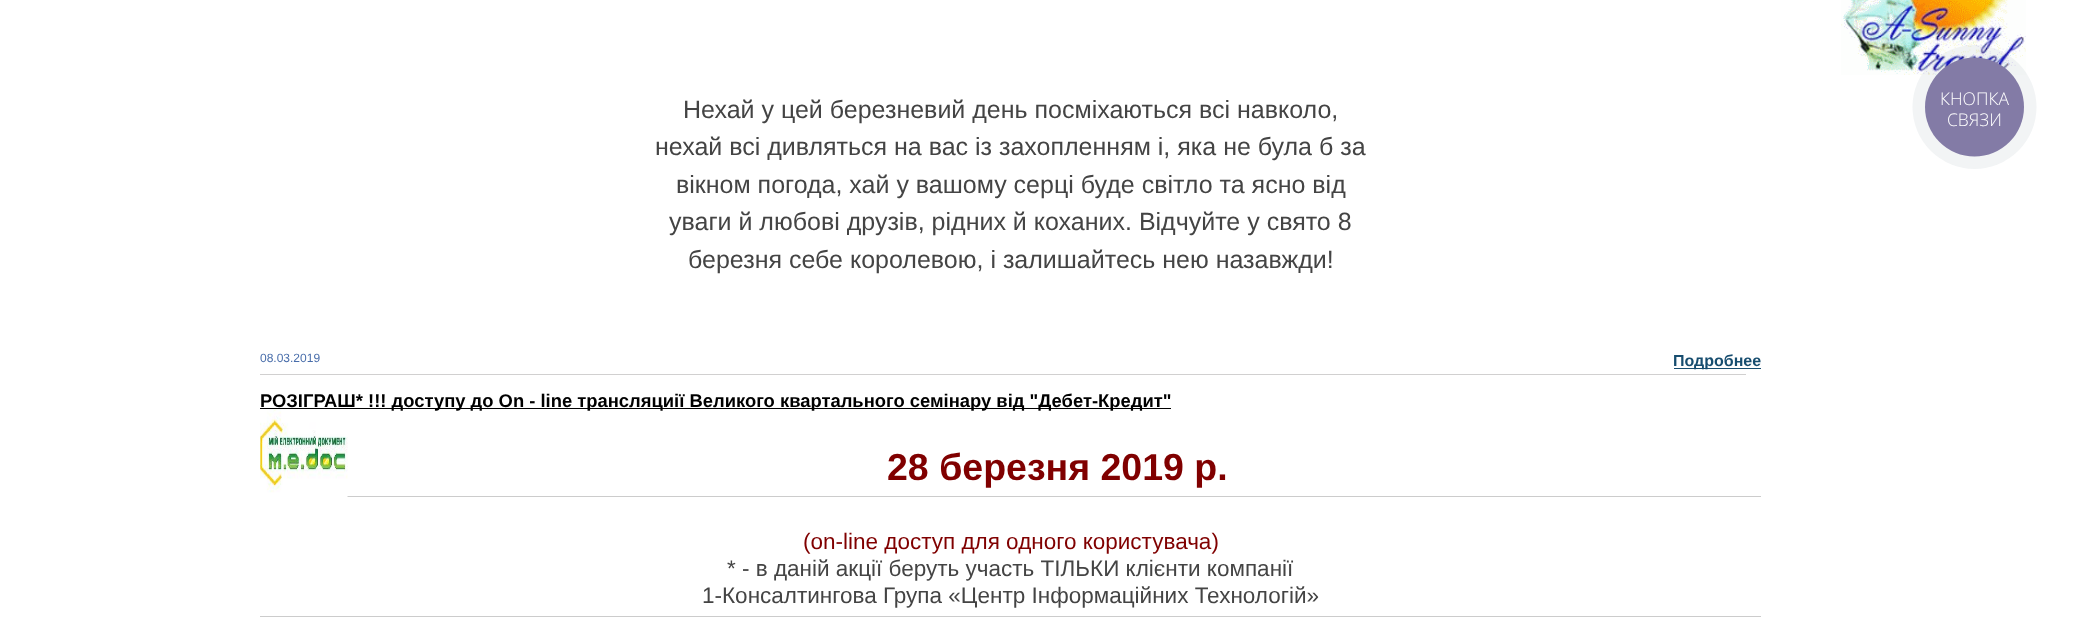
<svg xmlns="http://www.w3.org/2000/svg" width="2074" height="640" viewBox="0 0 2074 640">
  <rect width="100%" height="100%" fill="#fff"/>
  <image x="1841" y="0" width="185" height="75" href="img/1.png"/>
  <path d="M1674 368h87v1H1674z" fill="#174d6f"/>
  <path d="M260 374h1486v1H260z" fill="#d1d0d0"/>
  <path d="M260 408h911v1H260z" fill="#000"/>
  <path d="M347 496h1414v1H347z" fill="#ccc"/>
  <image x="260" y="409" width="88" height="88" href="img/2.png"/>
  <path d="M260 616h1501v1H260z" fill="#ccc"/>
  <circle cx="1974.5" cy="107" r="62" fill="#2a405d0f"/>
  <circle cx="1974.5" cy="107" r="49.5" fill="#837ba6"/>
  <g font-family="Liberation Sans" font-size="25" fill="#444">
    <text x="683" y="118">Нехай у цей березневий день посміхаються всі навколо,</text>
    <text x="655" y="155">нехай всі дивляться на вас із захопленням і, яка не була б за</text>
    <text x="676" y="193">вікном погода, хай у вашому серці буде світло та ясно від</text>
    <text x="669" y="230">уваги й любові друзів, рідних й коханих. Відчуйте у свято 8</text>
    <text x="688" y="268">березня себе королевою, і залишайтесь нею назавжди!</text>
  </g>
  <text x="260" y="362" font-family="Liberation Sans" font-size="12" fill="#486daa">08.03.2019</text>
  <text x="1673" y="366" font-family="Liberation Sans" font-size="16" font-weight="bold" fill="#174d6f">Подробнее</text>
  <text x="260" y="407" font-family="Liberation Sans" font-size="18.4" font-weight="bold" fill="#000">РОЗІГРАШ* !!! доступу до On - line трансляциії Великого квартального семінару від "Дебет-Кредит"</text>
  <text x="887" y="480" font-family="Liberation Sans" font-size="37.5" font-weight="bold" fill="#800000">28 березня 2019 р.</text>
  <text x="803" y="549" font-family="Liberation Sans" font-size="22.5" fill="#800000">(on-line доступ для одного користувача)</text>
  <g font-family="Liberation Sans" font-size="22.5" fill="#444">
    <text x="727" y="576">* - в даній акції беруть участь ТІЛЬКИ клієнти компанії</text>
    <text x="702" y="603">1-Консалтингова Група «Центр Інформаційних Технологій»</text>
  </g>
  <g font-family="Open Sans" font-size="17.5" font-weight="300" fill="#fff">
    <text x="1940" y="105">КНОПКА</text>
    <text x="1947" y="126">СВЯЗИ</text>
  </g>
</svg>
